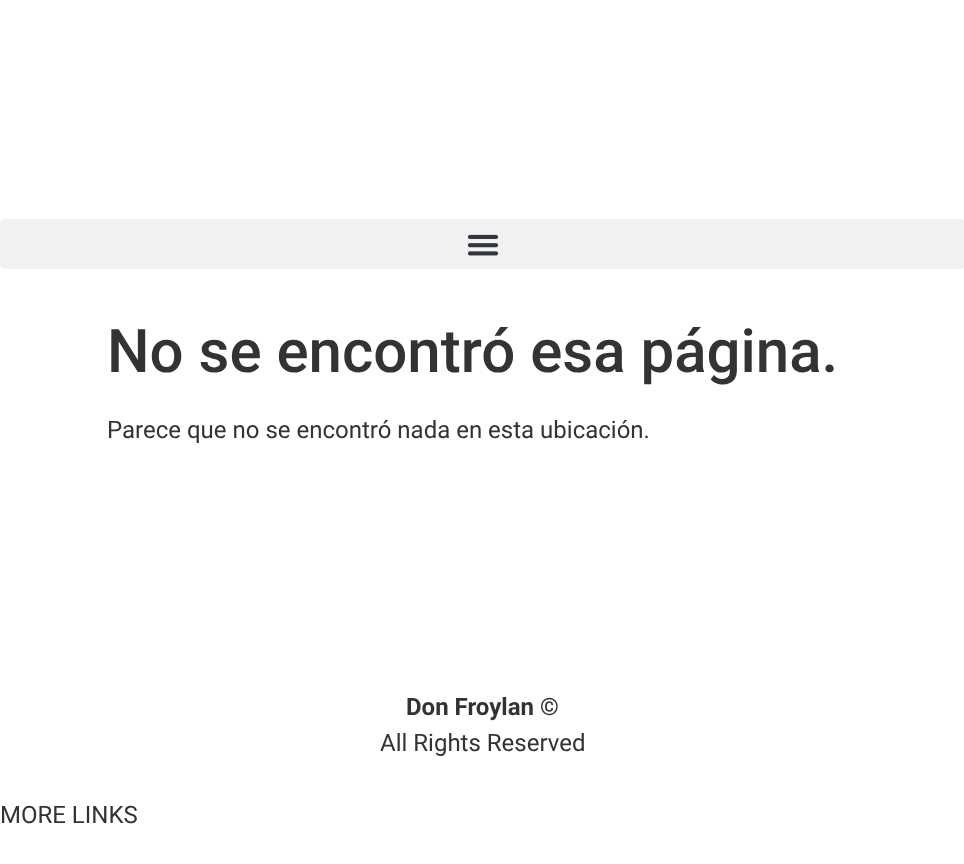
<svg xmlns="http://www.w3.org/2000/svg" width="964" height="864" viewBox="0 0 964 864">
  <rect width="100%" height="100%" fill="#fff"/>
  <rect y="219" width="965" height="50" rx="5" fill="#f2f2f2"/>
  <image x="467" y="234" width="32" height="22" href="img/1.png"/>
  <text x="107" y="372" font-family="Roboto" font-size="60" font-weight="500" fill="#333">No se encontró esa página.</text>
  <text x="107" y="438" font-family="Roboto" font-size="24" fill="#333">Parece que no se encontró nada en esta ubicación.</text>
  <text x="406" y="715" font-family="Roboto" font-size="24" font-weight="bold" fill="#333">Don Froylan ©</text>
  <g font-family="Roboto" font-size="24" fill="#333">
    <text x="380" y="751">All Rights Reserved</text>
    <text x="0" y="823">MORE LINKS</text>
  </g>
</svg>
